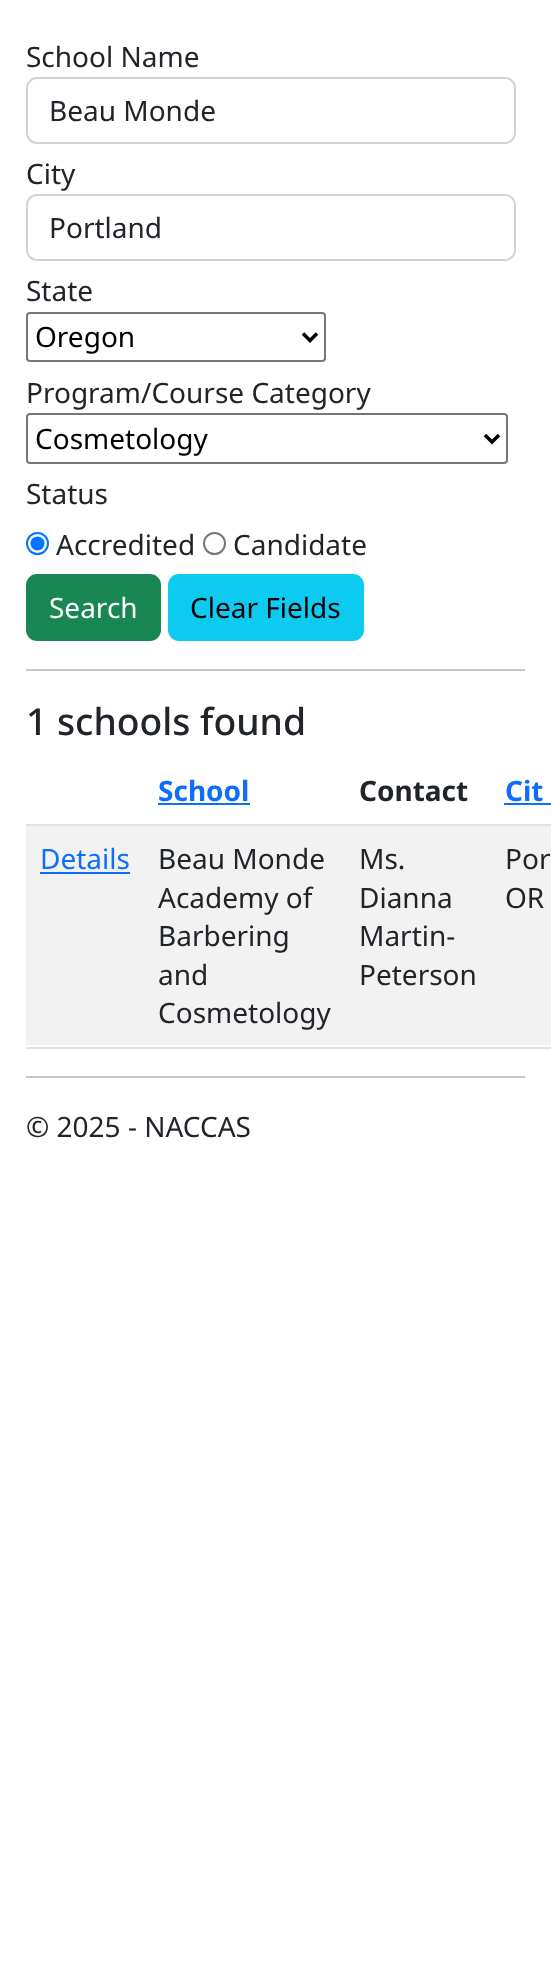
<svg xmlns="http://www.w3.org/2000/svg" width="551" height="1963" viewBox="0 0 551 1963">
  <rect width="100%" height="100%" fill="#fff"/>
  <rect x="27" y="78" width="488" height="65" rx="10" fill="none" stroke="#ced4da" stroke-width="2"/>
  <rect x="27" y="195" width="488" height="65" rx="10" fill="none" stroke="#ced4da" stroke-width="2"/>
  <rect x="27" y="313" width="298" height="48" rx="3" fill="none" stroke="#767676" stroke-width="2"/>
  <path d="M303 333.5L310 340.5L317 333.5" fill="none" stroke="#000" stroke-width="3.5"/>
  <rect x="27" y="414" width="480" height="49" rx="3" fill="none" stroke="#767676" stroke-width="2"/>
  <path d="M485 435L492 442L499 435" fill="none" stroke="#000" stroke-width="3.5"/>
  <circle cx="37.5" cy="543.5" r="10.5" fill="none" stroke="#0075ff" stroke-width="2"/>
  <circle cx="37.5" cy="543.5" r="7" fill="#0075ff"/>
  <circle cx="214.5" cy="543.5" r="10.5" fill="none" stroke="#767676" stroke-width="2"/>
  <rect x="27" y="575" width="133" height="65" rx="10" fill="#198754" stroke="#198754" stroke-width="2"/>
  <rect x="169" y="575" width="194" height="65" rx="10" fill="#0dcaf0" stroke="#0dcaf0" stroke-width="2"/>
  <path d="M26 669h499v2H26z" fill="#c8c9ca"/>
  <path d="M158 803h92v2H158z" fill="#0d6efd"/>
  <path d="M26 824h525v2H26z" fill="#dee2e6"/>
  <path d="M504 803h47v2H504z" fill="#0d6efd"/>
  <path d="M26 826h525v219H26z" fill="#f2f2f2"/>
  <path d="M40 872h90v2H40z" fill="#0d6efd"/>
  <path d="M26 1047h525v2H26z" fill="#dee2e6"/>
  <path d="M26 1076h499v2H26z" fill="#c8c9ca"/>
  <g font-family="Noto Sans" font-size="28" fill="#212529">
    <text x="26" y="67">School Name</text>
    <text x="49" y="121">Beau Monde</text>
    <text x="26" y="184">City</text>
    <text x="49" y="238">Portland</text>
    <text x="26" y="301">State</text>
  </g>
  <text x="35" y="347" font-family="Noto Sans" font-size="28" fill="#000">Oregon</text>
  <text x="26" y="403" font-family="Noto Sans" font-size="28" fill="#212529">Program/Course Category</text>
  <text x="35" y="449" font-family="Noto Sans" font-size="28" fill="#000">Cosmetology</text>
  <g font-family="Noto Sans" font-size="28" fill="#212529">
    <text x="26" y="504">Status</text>
    <text x="56" y="555">Accredited</text>
    <text x="233" y="555">Candidate</text>
  </g>
  <text x="49" y="618" font-family="Noto Sans" font-size="28" fill="#fff">Search</text>
  <text x="190" y="618" font-family="Noto Sans" font-size="28" fill="#000">Clear Fields</text>
  <text x="26" y="735" font-family="Noto Sans" font-size="37.25" font-weight="500" fill="#212529">1 schools found</text>
  <text x="158" y="801" font-family="Noto Sans" font-size="28" font-weight="bold" fill="#0d6efd">School</text>
  <text x="359" y="801" font-family="Noto Sans" font-size="28" font-weight="bold" fill="#212529">Contact</text>
  <text x="505" y="801" font-family="Noto Sans" font-size="28" font-weight="bold" fill="#0d6efd">Cit</text>
  <text x="40" y="869" font-family="Noto Sans" font-size="28" fill="#0d6efd">Details</text>
  <g font-family="Noto Sans" font-size="28" fill="#212529">
    <text x="158" y="869">Beau Monde</text>
    <text x="158" y="908">Academy of</text>
    <text x="158" y="946">Barbering</text>
    <text x="158" y="985">and</text>
    <text x="158" y="1023">Cosmetology</text>
    <text x="359" y="869">Ms.</text>
    <text x="359" y="908">Dianna</text>
    <text x="359" y="946">Martin-</text>
    <text x="359" y="985">Peterson</text>
    <text x="505" y="869">Por</text>
    <text x="505" y="908">OR</text>
    <text x="26" y="1137">© 2025 - NACCAS</text>
  </g>
</svg>
